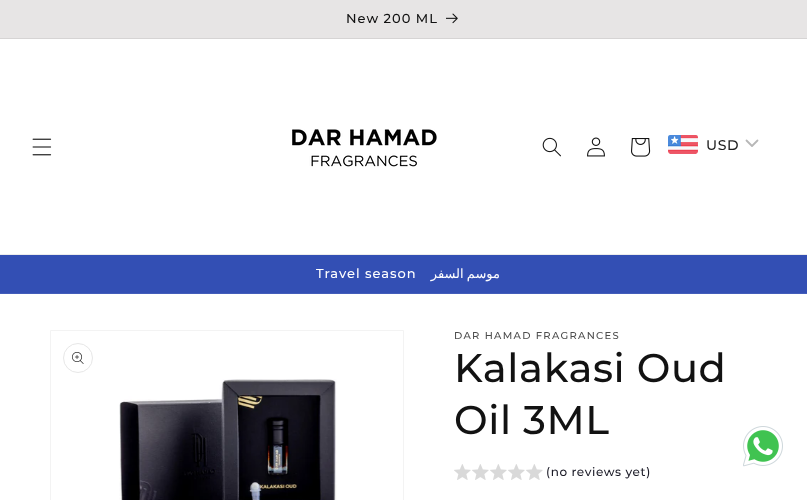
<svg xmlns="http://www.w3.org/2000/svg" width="807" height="500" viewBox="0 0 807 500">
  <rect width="100%" height="100%" fill="#fff"/>
  <path d="M0 0h807v38H0z" fill="#e7e5e5"/>
  <path d="M0 38h807v1H0z" fill="#d6d4d4"/>
  <image x="446" y="13" width="12" height="11" href="img/1.png"/>
  <path d="M0 254h807v1H0z" fill="#ececec"/>
  <image x="32" y="138" width="20" height="18" href="img/2.png"/>
  <image x="292" y="129" width="145" height="38" href="img/3.png"/>
  <image x="542" y="137" width="19" height="20" href="img/4.png"/>
  <image x="587" y="137" width="18" height="20" href="img/5.png"/>
  <image x="631" y="138" width="20" height="19" href="img/6.png"/>
  <image x="668" y="135" width="30" height="19" href="img/7.png"/>
  <path d="M746.5 140.5L752 146L757.5 140.5" fill="none" stroke="#b7b7b7" stroke-width="1.8" stroke-linecap="round" stroke-linejoin="round"/>
  <path d="M0 255h807v38H0z" fill="#334fb4"/>
  <path d="M0 293h807v1H0z" fill="#435dba"/>
  <path d="M50.5 330.5h353v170H50.5z" fill="none" stroke="#f3f3f3"/>
  <circle cx="78" cy="358" r="14.5" fill="none" stroke="#e7e7e7"/>
  <image x="72" y="352" width="12" height="12" href="img/8.png"/>
  <image x="119" y="379" width="218" height="121" href="img/9.png"/>
  <image x="454" y="464" width="17" height="16" href="img/10.png"/>
  <image x="472" y="464" width="17" height="16" href="img/10.png"/>
  <image x="490" y="464" width="17" height="16" href="img/10.png"/>
  <image x="508" y="464" width="17" height="16" href="img/10.png"/>
  <image x="526" y="464" width="17" height="16" href="img/10.png"/>
  <image x="743" y="426" width="40" height="41" href="img/11.png"/>
  <text x="346" y="23" font-family="Montserrat" font-size="13" font-weight="500" letter-spacing="1" fill="#121212">New 200 ML</text>
  <text x="706" y="150" font-family="Montserrat" font-size="14" font-weight="500" letter-spacing="0.6" fill="#1e1e1e">USD</text>
  <text x="316" y="278" font-family="Montserrat" font-size="13" font-weight="500" letter-spacing="1" fill="#fff">Travel season</text>
  <text x="500" y="278" word-spacing="-1" font-family="DejaVu Sans" font-size="13" letter-spacing="1" direction="rtl" fill="#fff">موسم السفر</text>
  <text x="454" y="339" font-family="Montserrat" font-size="10" font-weight="500" letter-spacing="1.3" fill="#4d4d4d">DAR HAMAD FRAGRANCES</text>
  <g font-family="Montserrat" font-size="40" font-weight="500" letter-spacing="0.6" fill="#121212">
    <text x="454" y="382">Kalakasi Oud</text>
    <text x="454" y="434">Oil 3ML</text>
  </g>
  <text x="546" y="476" font-family="Montserrat" font-size="12" font-weight="500" letter-spacing="0.6" fill="#1c1c28">(no reviews yet)</text>
</svg>
